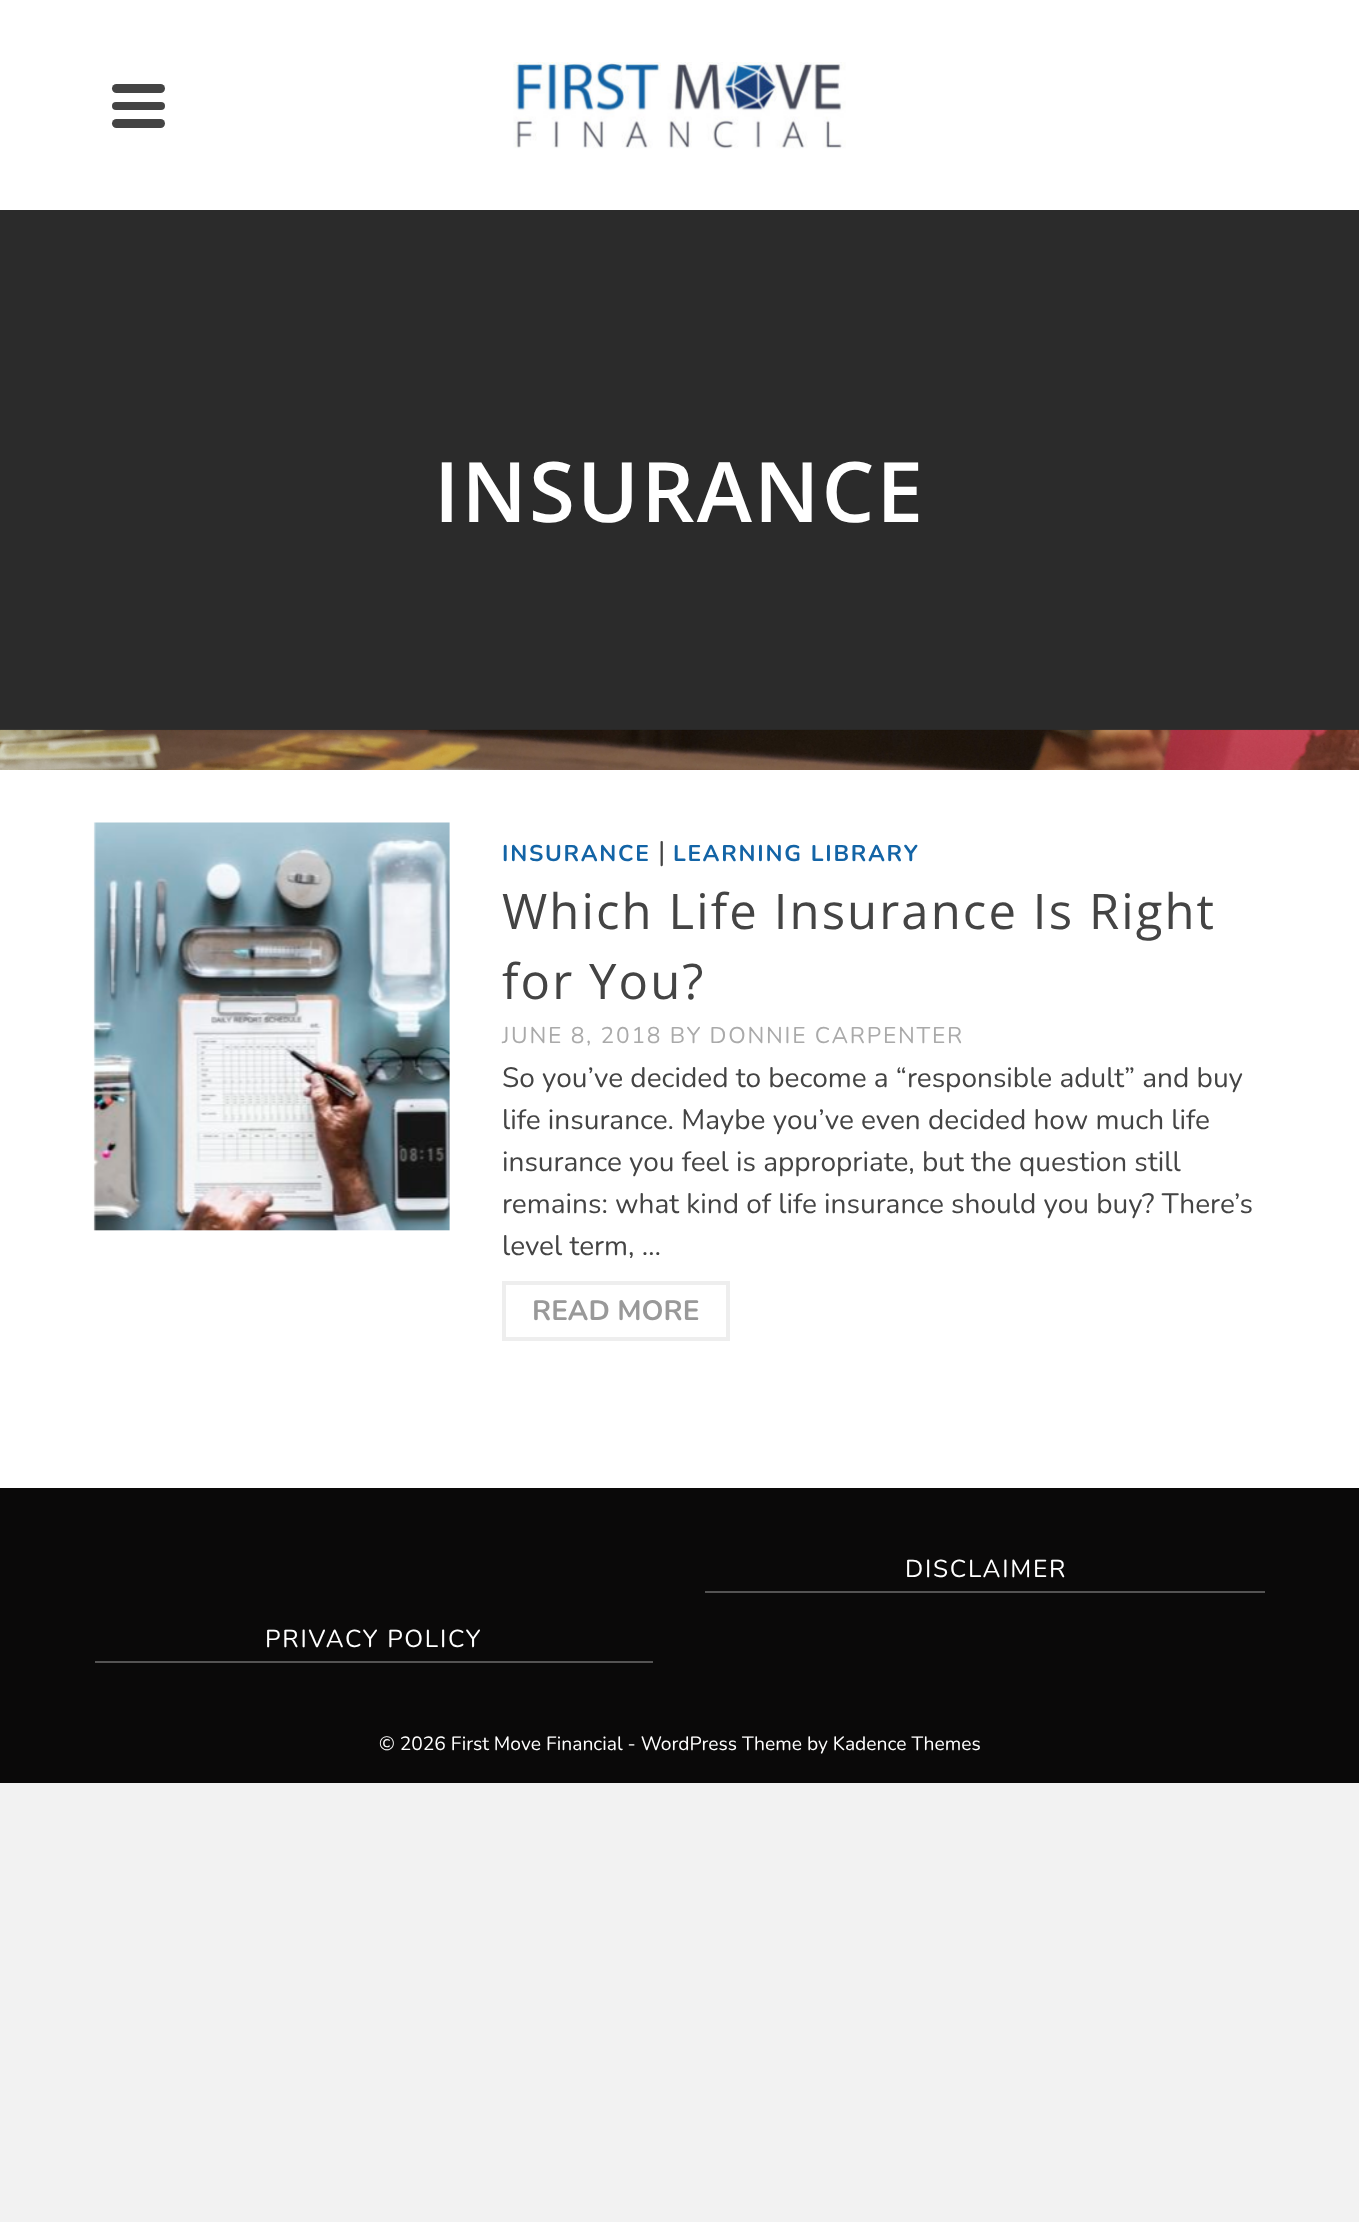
<svg xmlns="http://www.w3.org/2000/svg" width="1359" height="2222" viewBox="0 0 1359 2222">
  <rect width="100%" height="100%" fill="#f2f2f2"/>
  <path d="M0 0h1359v210H0z" fill="#fff"/>
  <rect x="112" y="84" width="53" height="9" rx="4.5" fill="#444"/>
  <rect x="112" y="102" width="53" height="8" rx="4" fill="#444"/>
  <rect x="112" y="119" width="53" height="9" rx="4.5" fill="#444"/>
  <image x="513" y="62" width="333" height="87" href="img/1.png"/>
  <path d="M0 770h1359v718H0z" fill="#fff"/>
  <path d="M0 210h1359v521H0z" fill="#2b2b2b"/>
  <image x="0" y="729" width="1359" height="41" href="img/2.png"/>
  <image x="93" y="822" width="357" height="409" href="img/3.png"/>
  <path d="M504 1283h224v56H504z" fill="none" stroke="#eee" stroke-width="4"/>
  <path d="M0 1488h1359v295H0z" fill="#0a0909"/>
  <path d="M705 1591h560v2H705z" fill="#545353"/>
  <path d="M95 1661h558v2H95z" fill="#545353"/>
  <text x="434" y="522" font-family="Open Sans" font-size="83.5" font-weight="600" letter-spacing="2.1" fill="#fff">INSURANCE</text>
  <text x="502" y="861" font-family="Nunito" font-size="22.75" font-weight="bold" letter-spacing="1.75" fill="#1364a6">INSURANCE</text>
  <text x="658" y="861" font-family="Nunito" font-size="28" fill="#444">|</text>
  <text x="673" y="861" font-family="Nunito" font-size="22.75" font-weight="bold" letter-spacing="1.75" fill="#1364a6">LEARNING LIBRARY</text>
  <g font-family="Open Sans" font-size="49" letter-spacing="2.1" fill="#444">
    <text x="502" y="929">Which Life Insurance Is Right</text>
    <text x="502" y="999">for You?</text>
  </g>
  <text x="502" y="1043" font-family="Nunito" font-size="22.75" letter-spacing="1.75" fill="#aaa">JUNE 8, 2018 BY DONNIE CARPENTER</text>
  <g font-family="Nunito" font-size="28" fill="#444">
    <text x="502" y="1087">So you’ve decided to become a “responsible adult” and buy</text>
    <text x="502" y="1129">life insurance. Maybe you’ve even decided how much life</text>
    <text x="502" y="1171">insurance you feel is appropriate, but the question still</text>
    <text x="502" y="1213">remains: what kind of life insurance should you buy? There’s</text>
    <text x="502" y="1255">level term, …</text>
  </g>
  <text x="532" y="1320" font-family="Nunito" font-size="28" font-weight="bold" fill="#999">READ MORE</text>
  <g font-family="Nunito" font-size="24.5" letter-spacing="1.75" fill="#fff">
    <text x="905" y="1577">DISCLAIMER</text>
    <text x="265" y="1647">PRIVACY POLICY</text>
  </g>
  <text x="379" y="1750" font-family="Nunito" font-size="19.25" fill="#fff">© 2026 First Move Financial - WordPress Theme by Kadence Themes</text>
</svg>
